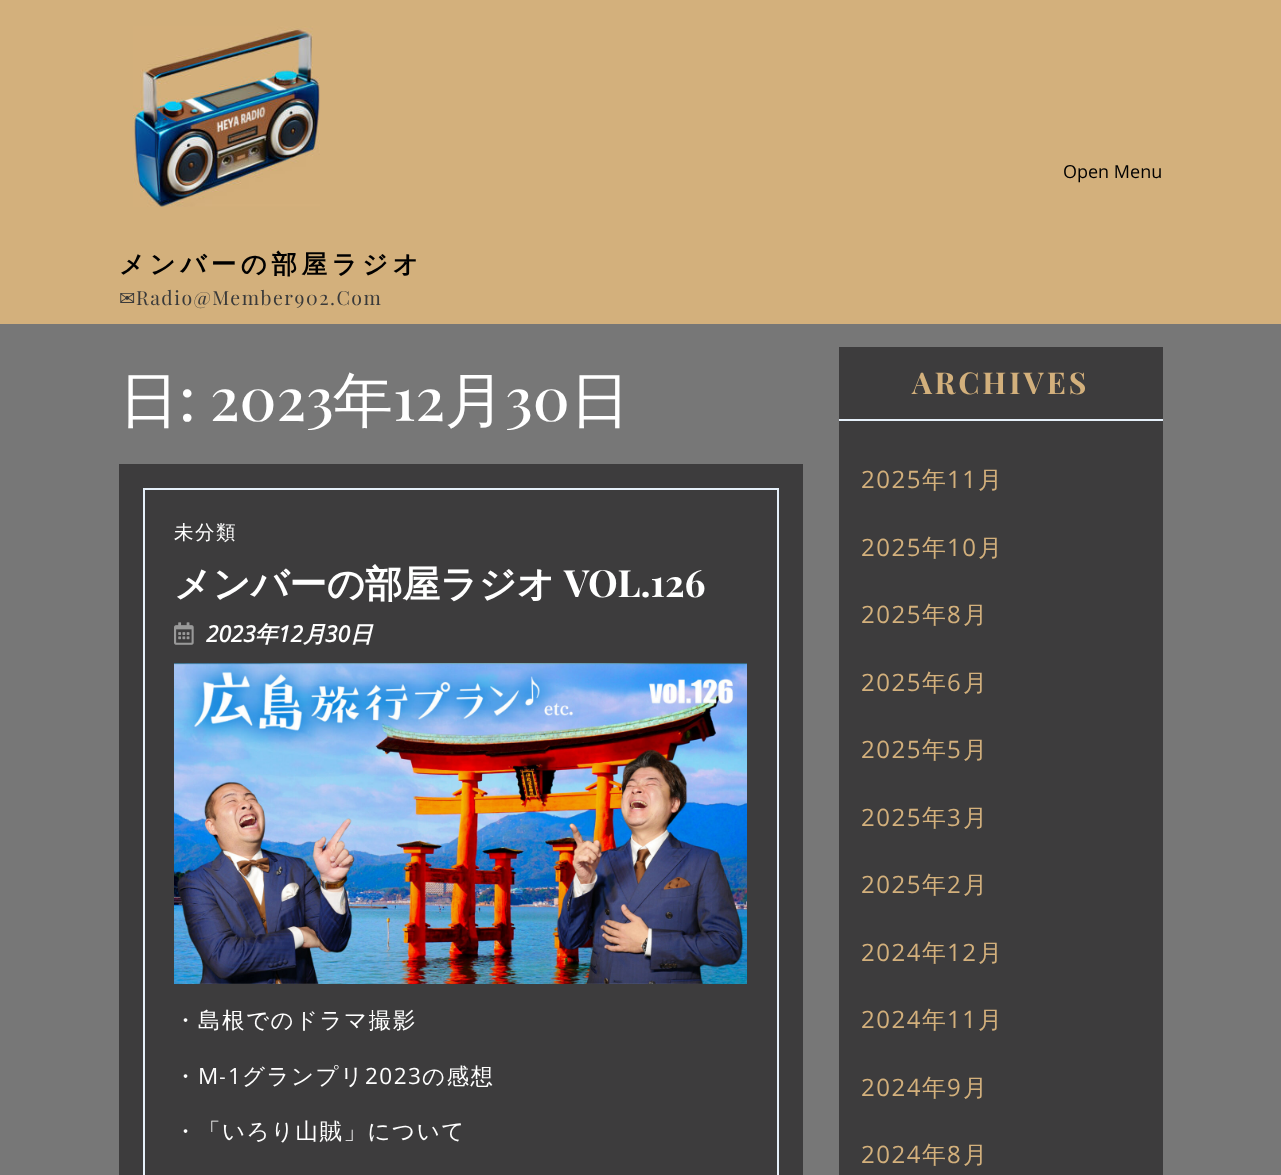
<svg xmlns="http://www.w3.org/2000/svg" width="1281" height="1175" viewBox="0 0 1281 1175">
  <rect width="100%" height="100%" fill="#777"/>
  <path d="M0 0h1281v324H0z" fill="#d3b07c"/>
  <image x="133" y="26" width="187" height="181" href="img/1.png"/>
  <path d="M119 464h684v711H119z" fill="#3d3c3d"/>
  <path d="M144 489h634v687H144z" fill="none" stroke="#e6f0fa" stroke-width="2"/>
  <image x="174" y="622" width="20" height="23" href="img/2.png"/>
  <image x="174" y="663" width="573" height="321" href="img/3.png"/>
  <path d="M839 347h324v828H839z" fill="#3d3c3d"/>
  <path d="M839 419h324v2H839z" fill="#e6f0fa"/>
  <text x="1063" y="178" font-family="Open Sans" font-size="18" fill="#000">Open Menu</text>
  <text x="119" y="273" font-family="WenQuanYi Zen Hei" font-size="25.5" font-weight="bold" letter-spacing="4.5" fill="#000">メンバーの部屋ラジオ</text>
  <text x="119" y="305" font-family="DejaVu Sans" font-size="19.5" letter-spacing="1.5" fill="#3a3a3a">✉</text>
  <text x="136" y="305" font-family="Playfair Display" font-size="19.5" letter-spacing="1.5" fill="#3a3a3a">Radio@Member902.Com</text>
  <text x="119" y="421" font-family="WenQuanYi Zen Hei" font-size="60" font-weight="500" fill="#fff">日</text>
  <text x="179" y="421" font-family="Playfair Display" font-size="60" font-weight="500" fill="#fff">: 2023</text>
  <text x="333" y="421" font-family="WenQuanYi Zen Hei" font-size="60" font-weight="500" fill="#fff">年</text>
  <text x="393" y="421" font-family="Playfair Display" font-size="60" font-weight="500" fill="#fff">12</text>
  <text x="445" y="421" font-family="WenQuanYi Zen Hei" font-size="60" font-weight="500" fill="#fff">月</text>
  <text x="505" y="421" font-family="Playfair Display" font-size="60" font-weight="500" fill="#fff">30</text>
  <text x="570" y="421" font-family="WenQuanYi Zen Hei" font-size="60" font-weight="500" fill="#fff">日</text>
  <text x="174" y="539" font-family="WenQuanYi Zen Hei" font-size="19.5" font-weight="500" letter-spacing="1.5" fill="#fff">未分類</text>
  <text x="174" y="597" font-family="WenQuanYi Zen Hei" font-size="37.5" font-weight="bold" fill="#fff">メンバーの部屋ラジオ</text>
  <text x="564" y="597" font-family="Playfair Display" font-size="37.5" font-weight="bold" fill="#fff">VOL.126</text>
  <text x="206" y="642" font-family="Open Sans" font-size="22.5" font-weight="bold" font-style="italic" fill="#fff">2023</text>
  <text x="255" y="642" font-family="WenQuanYi Zen Hei" font-size="22.5" font-weight="bold" font-style="italic" fill="#fff">年</text>
  <text x="278" y="642" font-family="Open Sans" font-size="22.5" font-weight="bold" font-style="italic" fill="#fff">12</text>
  <text x="303" y="642" font-family="WenQuanYi Zen Hei" font-size="22.5" font-weight="bold" font-style="italic" fill="#fff">月</text>
  <text x="325" y="642" font-family="Open Sans" font-size="22.5" font-weight="bold" font-style="italic" fill="#fff">30</text>
  <text x="350" y="642" font-family="WenQuanYi Zen Hei" font-size="22.5" font-weight="bold" font-style="italic" fill="#fff">日</text>
  <g font-family="WenQuanYi Zen Hei" font-size="22.5" font-weight="500" letter-spacing="1.5" fill="#fff">
    <text x="174" y="1028">・島根でのドラマ撮影</text>
    <text x="174" y="1084">・</text>
  </g>
  <text x="198" y="1084" font-family="Open Sans" font-size="22.5" letter-spacing="1.5" fill="#fff">M</text>
  <text x="220" y="1084" font-family="WenQuanYi Zen Hei" font-size="22.5" font-weight="500" letter-spacing="1.5" fill="#fff">-</text>
  <text x="228" y="1084" font-family="Open Sans" font-size="22.5" letter-spacing="1.5" fill="#fff">1</text>
  <text x="242" y="1084" font-family="WenQuanYi Zen Hei" font-size="22.5" font-weight="500" letter-spacing="1.5" fill="#fff">グランプリ</text>
  <text x="365" y="1084" font-family="Open Sans" font-size="22.5" letter-spacing="1.5" fill="#fff">2023</text>
  <g font-family="WenQuanYi Zen Hei" font-size="22.5" font-weight="500" letter-spacing="1.5" fill="#fff">
    <text x="422" y="1084">の感想</text>
    <text x="174" y="1139">・「いろり山賊」について</text>
  </g>
  <text x="912" y="394" font-family="Playfair Display" font-size="30" font-weight="bold" letter-spacing="3" fill="#d3b07c">ARCHIVES</text>
  <text x="861" y="488" font-family="Open Sans" font-size="24" letter-spacing="1.5" fill="#d3b07c">2025</text>
  <text x="922" y="488" font-family="WenQuanYi Zen Hei" font-size="24" font-weight="500" letter-spacing="1.5" fill="#d3b07c">年</text>
  <text x="947" y="488" font-family="Open Sans" font-size="24" letter-spacing="1.5" fill="#d3b07c">11</text>
  <text x="978" y="488" font-family="WenQuanYi Zen Hei" font-size="24" font-weight="500" letter-spacing="1.5" fill="#d3b07c">月</text>
  <text x="861" y="556" font-family="Open Sans" font-size="24" letter-spacing="1.5" fill="#d3b07c">2025</text>
  <text x="922" y="556" font-family="WenQuanYi Zen Hei" font-size="24" font-weight="500" letter-spacing="1.5" fill="#d3b07c">年</text>
  <text x="947" y="556" font-family="Open Sans" font-size="24" letter-spacing="1.5" fill="#d3b07c">10</text>
  <text x="978" y="556" font-family="WenQuanYi Zen Hei" font-size="24" font-weight="500" letter-spacing="1.5" fill="#d3b07c">月</text>
  <text x="861" y="623" font-family="Open Sans" font-size="24" letter-spacing="1.5" fill="#d3b07c">2025</text>
  <text x="922" y="623" font-family="WenQuanYi Zen Hei" font-size="24" font-weight="500" letter-spacing="1.5" fill="#d3b07c">年</text>
  <text x="947" y="623" font-family="Open Sans" font-size="24" letter-spacing="1.5" fill="#d3b07c">8</text>
  <text x="963" y="623" font-family="WenQuanYi Zen Hei" font-size="24" font-weight="500" letter-spacing="1.5" fill="#d3b07c">月</text>
  <text x="861" y="691" font-family="Open Sans" font-size="24" letter-spacing="1.5" fill="#d3b07c">2025</text>
  <text x="922" y="691" font-family="WenQuanYi Zen Hei" font-size="24" font-weight="500" letter-spacing="1.5" fill="#d3b07c">年</text>
  <text x="947" y="691" font-family="Open Sans" font-size="24" letter-spacing="1.5" fill="#d3b07c">6</text>
  <text x="963" y="691" font-family="WenQuanYi Zen Hei" font-size="24" font-weight="500" letter-spacing="1.5" fill="#d3b07c">月</text>
  <text x="861" y="758" font-family="Open Sans" font-size="24" letter-spacing="1.5" fill="#d3b07c">2025</text>
  <text x="922" y="758" font-family="WenQuanYi Zen Hei" font-size="24" font-weight="500" letter-spacing="1.5" fill="#d3b07c">年</text>
  <text x="947" y="758" font-family="Open Sans" font-size="24" letter-spacing="1.5" fill="#d3b07c">5</text>
  <text x="963" y="758" font-family="WenQuanYi Zen Hei" font-size="24" font-weight="500" letter-spacing="1.5" fill="#d3b07c">月</text>
  <text x="861" y="826" font-family="Open Sans" font-size="24" letter-spacing="1.5" fill="#d3b07c">2025</text>
  <text x="922" y="826" font-family="WenQuanYi Zen Hei" font-size="24" font-weight="500" letter-spacing="1.5" fill="#d3b07c">年</text>
  <text x="947" y="826" font-family="Open Sans" font-size="24" letter-spacing="1.5" fill="#d3b07c">3</text>
  <text x="963" y="826" font-family="WenQuanYi Zen Hei" font-size="24" font-weight="500" letter-spacing="1.5" fill="#d3b07c">月</text>
  <text x="861" y="893" font-family="Open Sans" font-size="24" letter-spacing="1.5" fill="#d3b07c">2025</text>
  <text x="922" y="893" font-family="WenQuanYi Zen Hei" font-size="24" font-weight="500" letter-spacing="1.5" fill="#d3b07c">年</text>
  <text x="947" y="893" font-family="Open Sans" font-size="24" letter-spacing="1.5" fill="#d3b07c">2</text>
  <text x="963" y="893" font-family="WenQuanYi Zen Hei" font-size="24" font-weight="500" letter-spacing="1.5" fill="#d3b07c">月</text>
  <text x="861" y="961" font-family="Open Sans" font-size="24" letter-spacing="1.5" fill="#d3b07c">2024</text>
  <text x="922" y="961" font-family="WenQuanYi Zen Hei" font-size="24" font-weight="500" letter-spacing="1.5" fill="#d3b07c">年</text>
  <text x="947" y="961" font-family="Open Sans" font-size="24" letter-spacing="1.5" fill="#d3b07c">12</text>
  <text x="978" y="961" font-family="WenQuanYi Zen Hei" font-size="24" font-weight="500" letter-spacing="1.5" fill="#d3b07c">月</text>
  <text x="861" y="1028" font-family="Open Sans" font-size="24" letter-spacing="1.5" fill="#d3b07c">2024</text>
  <text x="922" y="1028" font-family="WenQuanYi Zen Hei" font-size="24" font-weight="500" letter-spacing="1.5" fill="#d3b07c">年</text>
  <text x="947" y="1028" font-family="Open Sans" font-size="24" letter-spacing="1.5" fill="#d3b07c">11</text>
  <text x="978" y="1028" font-family="WenQuanYi Zen Hei" font-size="24" font-weight="500" letter-spacing="1.5" fill="#d3b07c">月</text>
  <text x="861" y="1096" font-family="Open Sans" font-size="24" letter-spacing="1.5" fill="#d3b07c">2024</text>
  <text x="922" y="1096" font-family="WenQuanYi Zen Hei" font-size="24" font-weight="500" letter-spacing="1.5" fill="#d3b07c">年</text>
  <text x="947" y="1096" font-family="Open Sans" font-size="24" letter-spacing="1.5" fill="#d3b07c">9</text>
  <text x="963" y="1096" font-family="WenQuanYi Zen Hei" font-size="24" font-weight="500" letter-spacing="1.5" fill="#d3b07c">月</text>
  <text x="861" y="1163" font-family="Open Sans" font-size="24" letter-spacing="1.5" fill="#d3b07c">2024</text>
  <text x="922" y="1163" font-family="WenQuanYi Zen Hei" font-size="24" font-weight="500" letter-spacing="1.5" fill="#d3b07c">年</text>
  <text x="947" y="1163" font-family="Open Sans" font-size="24" letter-spacing="1.5" fill="#d3b07c">8</text>
  <text x="963" y="1163" font-family="WenQuanYi Zen Hei" font-size="24" font-weight="500" letter-spacing="1.5" fill="#d3b07c">月</text>
</svg>
